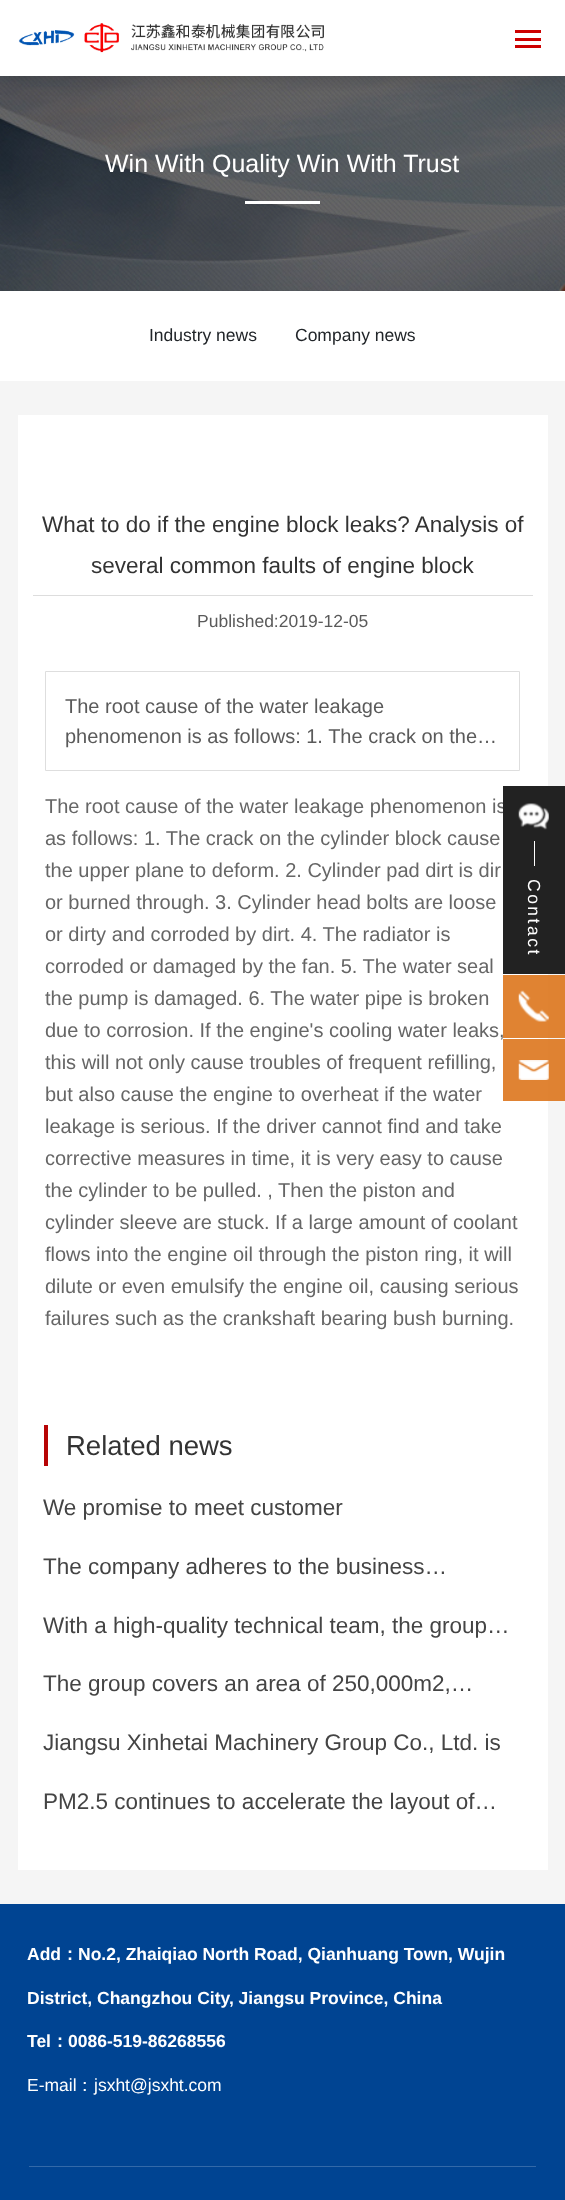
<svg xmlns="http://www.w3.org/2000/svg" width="565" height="2200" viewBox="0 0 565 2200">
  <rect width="100%" height="100%" fill="#fff"/>
  <image x="0" y="76" width="565" height="215" href="img/2.png"/>
  <path d="M0 0h565v76H0z" fill="#00000033" filter="blur(9.5px)"/>
  <path d="M0 0h565v76H0z" fill="#fff"/>
  <image x="18" y="23" width="306" height="30" href="img/1.png"/>
  <path d="M515 30h26v3H515z" fill="#cd0000"/>
  <path d="M515 38h26v3H515z" fill="#cd0000"/>
  <path d="M515 45h26v3H515z" fill="#cd0000"/>
  <path d="M245 201h75v3H245z" fill="#fff"/>
  <path d="M0 381h565v1523H0z" fill="#f5f5f5"/>
  <path d="M548 1039h17v62H548z" fill="#df8232"/>
  <path d="M18 415h530v1455H18z" fill="#fff"/>
  <path d="M503 1039h45v62H503z" fill="#e08333"/>
  <path d="M33 595h500v1H33z" fill="#ddd"/>
  <path d="M45.5 671.5h474v99H45.5z" fill="none" stroke="#dedede"/>
  <path d="M44 1425h4v41H44z" fill="#b70405"/>
  <image x="518" y="1060" width="31" height="20" href="img/5.png"/>
  <path d="M0 1904h565v296H0z" fill="#004492"/>
  <path d="M29 2166h507v1H29z" fill="#3369a8"/>
  <text x="105" y="172" font-family="Liberation Sans" font-size="25" fill="#fff">Win With Quality Win With Trust</text>
  <g font-family="Liberation Sans" font-size="17.5" fill="#212529">
    <text x="149" y="341">Industry news</text>
    <text x="295" y="341">Company news</text>
  </g>
  <g font-family="Liberation Sans" font-size="22.5" fill="#333">
    <text x="42" y="532">What to do if the engine block leaks? Analysis of</text>
    <text x="91" y="573">several common faults of engine block</text>
  </g>
  <text x="197" y="627" font-family="Liberation Sans" font-size="17.5" fill="#5a5a5a">Published:2019-12-05</text>
  <g font-family="Liberation Sans" font-size="20" fill="#5a5a5a">
    <text x="65" y="713">The root cause of the water leakage</text>
    <text x="65" y="743">phenomenon is as follows: 1. The crack on the…</text>
  </g>
  <g font-family="Liberation Sans" font-size="20" fill="#666">
    <text x="45" y="813">The root cause of the water leakage phenomenon is</text>
    <text x="45" y="845">as follows: 1. The crack on the cylinder block cause</text>
    <text x="45" y="877">the upper plane to deform. 2. Cylinder pad dirt is dir</text>
    <text x="45" y="909">or burned through. 3. Cylinder head bolts are loose</text>
    <text x="45" y="941">or dirty and corroded by dirt. 4. The radiator is</text>
    <text x="45" y="973">corroded or damaged by the fan. 5. The water seal</text>
    <text x="45" y="1005">the pump is damaged. 6. The water pipe is broken</text>
    <text x="45" y="1037">due to corrosion. If the engine's cooling water leaks,</text>
    <text x="45" y="1069">this will not only cause troubles of frequent refilling,</text>
    <text x="45" y="1101">but also cause the engine to overheat if the water</text>
    <text x="45" y="1133">leakage is serious. If the driver cannot find and take</text>
    <text x="45" y="1165">corrective measures in time, it is very easy to cause</text>
    <text x="45" y="1197">the cylinder to be pulled. , Then the piston and</text>
    <text x="45" y="1229">cylinder sleeve are stuck. If a large amount of coolant</text>
    <text x="45" y="1261">flows into the engine oil through the piston ring, it will</text>
    <text x="45" y="1293">dilute or even emulsify the engine oil, causing serious</text>
    <text x="45" y="1325">failures such as the crankshaft bearing bush burning.</text>
  </g>
  <text x="66" y="1455" font-family="Liberation Sans" font-size="27.5" fill="#333">Related news</text>
  <g font-family="Liberation Sans" font-size="22.5" fill="#444">
    <text x="43" y="1515">We promise to meet customer</text>
    <text x="43" y="1574">The company adheres to the business…</text>
    <text x="43" y="1633">With a high-quality technical team, the group…</text>
    <text x="43" y="1691">The group covers an area of 250,000m2,…</text>
    <text x="43" y="1750">Jiangsu Xinhetai Machinery Group Co., Ltd. is</text>
    <text x="43" y="1809">PM2.5 continues to accelerate the layout of…</text>
  </g>
  <path d="M503 786h62v188H503z" fill="#222"/>
  <image x="518" y="803" width="31" height="27" href="img/3.png"/>
  <path d="M534 841h1v25H534z" fill="#fff"/>
  <text x="528" y="879" transform="rotate(90 528 879)" font-family="Liberation Sans" font-size="17.5" letter-spacing="2.5" fill="#fff">Contact</text>
  <path d="M503 975h62v63H503z" fill="#dd751ce6"/>
  <image x="518" y="990" width="31" height="32" href="img/4.png"/>
  <text x="27" y="1960" font-family="Liberation Sans" font-size="17.5" font-weight="bold" fill="#fff">Add</text>
  <text x="61" y="1960" font-family="WenQuanYi Zen Hei" font-size="17.5" font-weight="bold" fill="#fff">：</text>
  <g font-family="Liberation Sans" font-size="17.5" font-weight="bold" fill="#fff">
    <text x="78" y="1960">No.2, Zhaiqiao North Road, Qianhuang Town, Wujin</text>
    <text x="27" y="2004">District, Changzhou City, Jiangsu Province, China</text>
    <text x="27" y="2047">Tel</text>
  </g>
  <text x="51" y="2047" font-family="WenQuanYi Zen Hei" font-size="17.5" font-weight="bold" fill="#fff">：</text>
  <text x="68" y="2047" font-family="Liberation Sans" font-size="17.5" font-weight="bold" fill="#fff">0086-519-86268556</text>
  <text x="27" y="2091" font-family="Liberation Sans" font-size="17.5" fill="#fff">E-mail</text>
  <text x="76" y="2091" font-family="WenQuanYi Zen Hei" font-size="17.5" font-weight="500" fill="#fff">：</text>
  <text x="94" y="2091" font-family="Liberation Sans" font-size="17.5" fill="#fff">jsxht@jsxht.com</text>
</svg>
